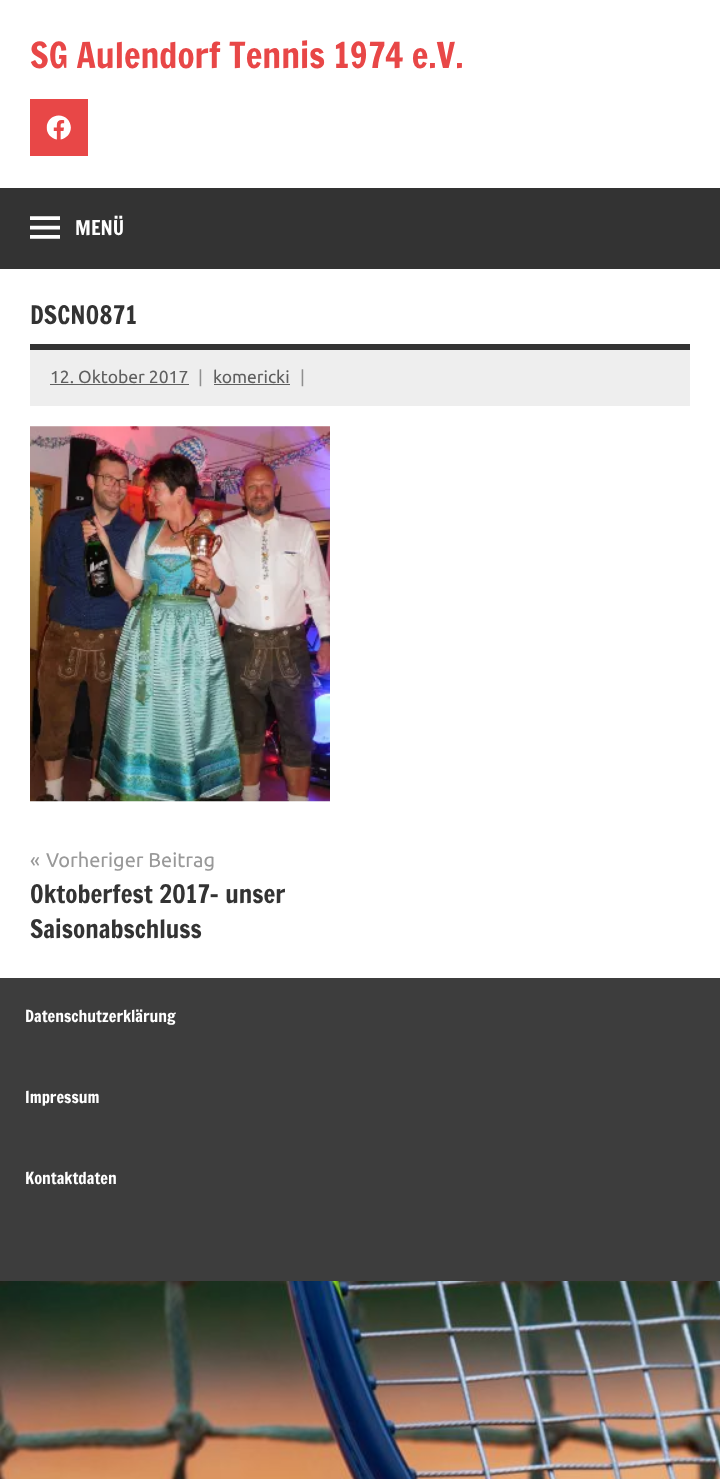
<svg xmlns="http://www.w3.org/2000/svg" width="720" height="1479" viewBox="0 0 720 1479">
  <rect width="100%" height="100%" fill="#fff"/>
  <image x="0" y="1281" width="720" height="198" href="img/1.png"/>
  <path d="M30 99h58v57H30z" fill="#e84747"/>
  <image x="46" y="115" width="25" height="25" href="img/2.png"/>
  <path d="M0 188h720v81H0z" fill="#333"/>
  <image x="30" y="216" width="30" height="23" href="img/3.png"/>
  <path d="M30 344h660v6H30z" fill="#333"/>
  <path d="M30 350h660v56H30z" fill="#eee"/>
  <path d="M50 384h139v1H50z" fill="#5f5f5f"/>
  <path d="M214 384h76v1H214z" fill="#5f5f5f"/>
  <image x="30" y="426" width="300" height="376" href="img/4.png"/>
  <path d="M0 978h720v303H0z" fill="#3d3d3d"/>
  <text x="30" y="68" font-family="Francois One" font-size="35" fill="#e84747">SG Aulendorf Tennis 1974 e.V.</text>
  <text x="75" y="235" font-family="Francois One" font-size="20" fill="#fff">MENÜ</text>
  <text x="30" y="324" font-family="Francois One" font-size="25" fill="#333">DSCN0871</text>
  <text x="50" y="383" font-family="Ubuntu" font-size="17.5" fill="#5f5f5f">12. Oktober 2017</text>
  <text x="198" y="383" font-family="Ubuntu" font-size="17.5" fill="#8f8f8f">|</text>
  <text x="213" y="383" font-family="Ubuntu" font-size="17.5" fill="#5f5f5f">komericki</text>
  <text x="300" y="383" font-family="Ubuntu" font-size="17.5" fill="#8f8f8f">|</text>
  <g font-family="Ubuntu" font-size="20" fill="#999">
    <text x="30" y="867">«</text>
    <text x="46" y="867">Vorheriger Beitrag</text>
  </g>
  <g font-family="Francois One" font-size="25" fill="#333">
    <text x="30" y="903">Oktoberfest 2017- unser</text>
    <text x="30" y="938">Saisonabschluss</text>
  </g>
  <g font-family="Francois One" font-size="16.25" fill="#fff">
    <text x="25" y="1022">Datenschutzerklärung</text>
    <text x="25" y="1103">Impressum</text>
    <text x="25" y="1184">Kontaktdaten</text>
  </g>
</svg>
